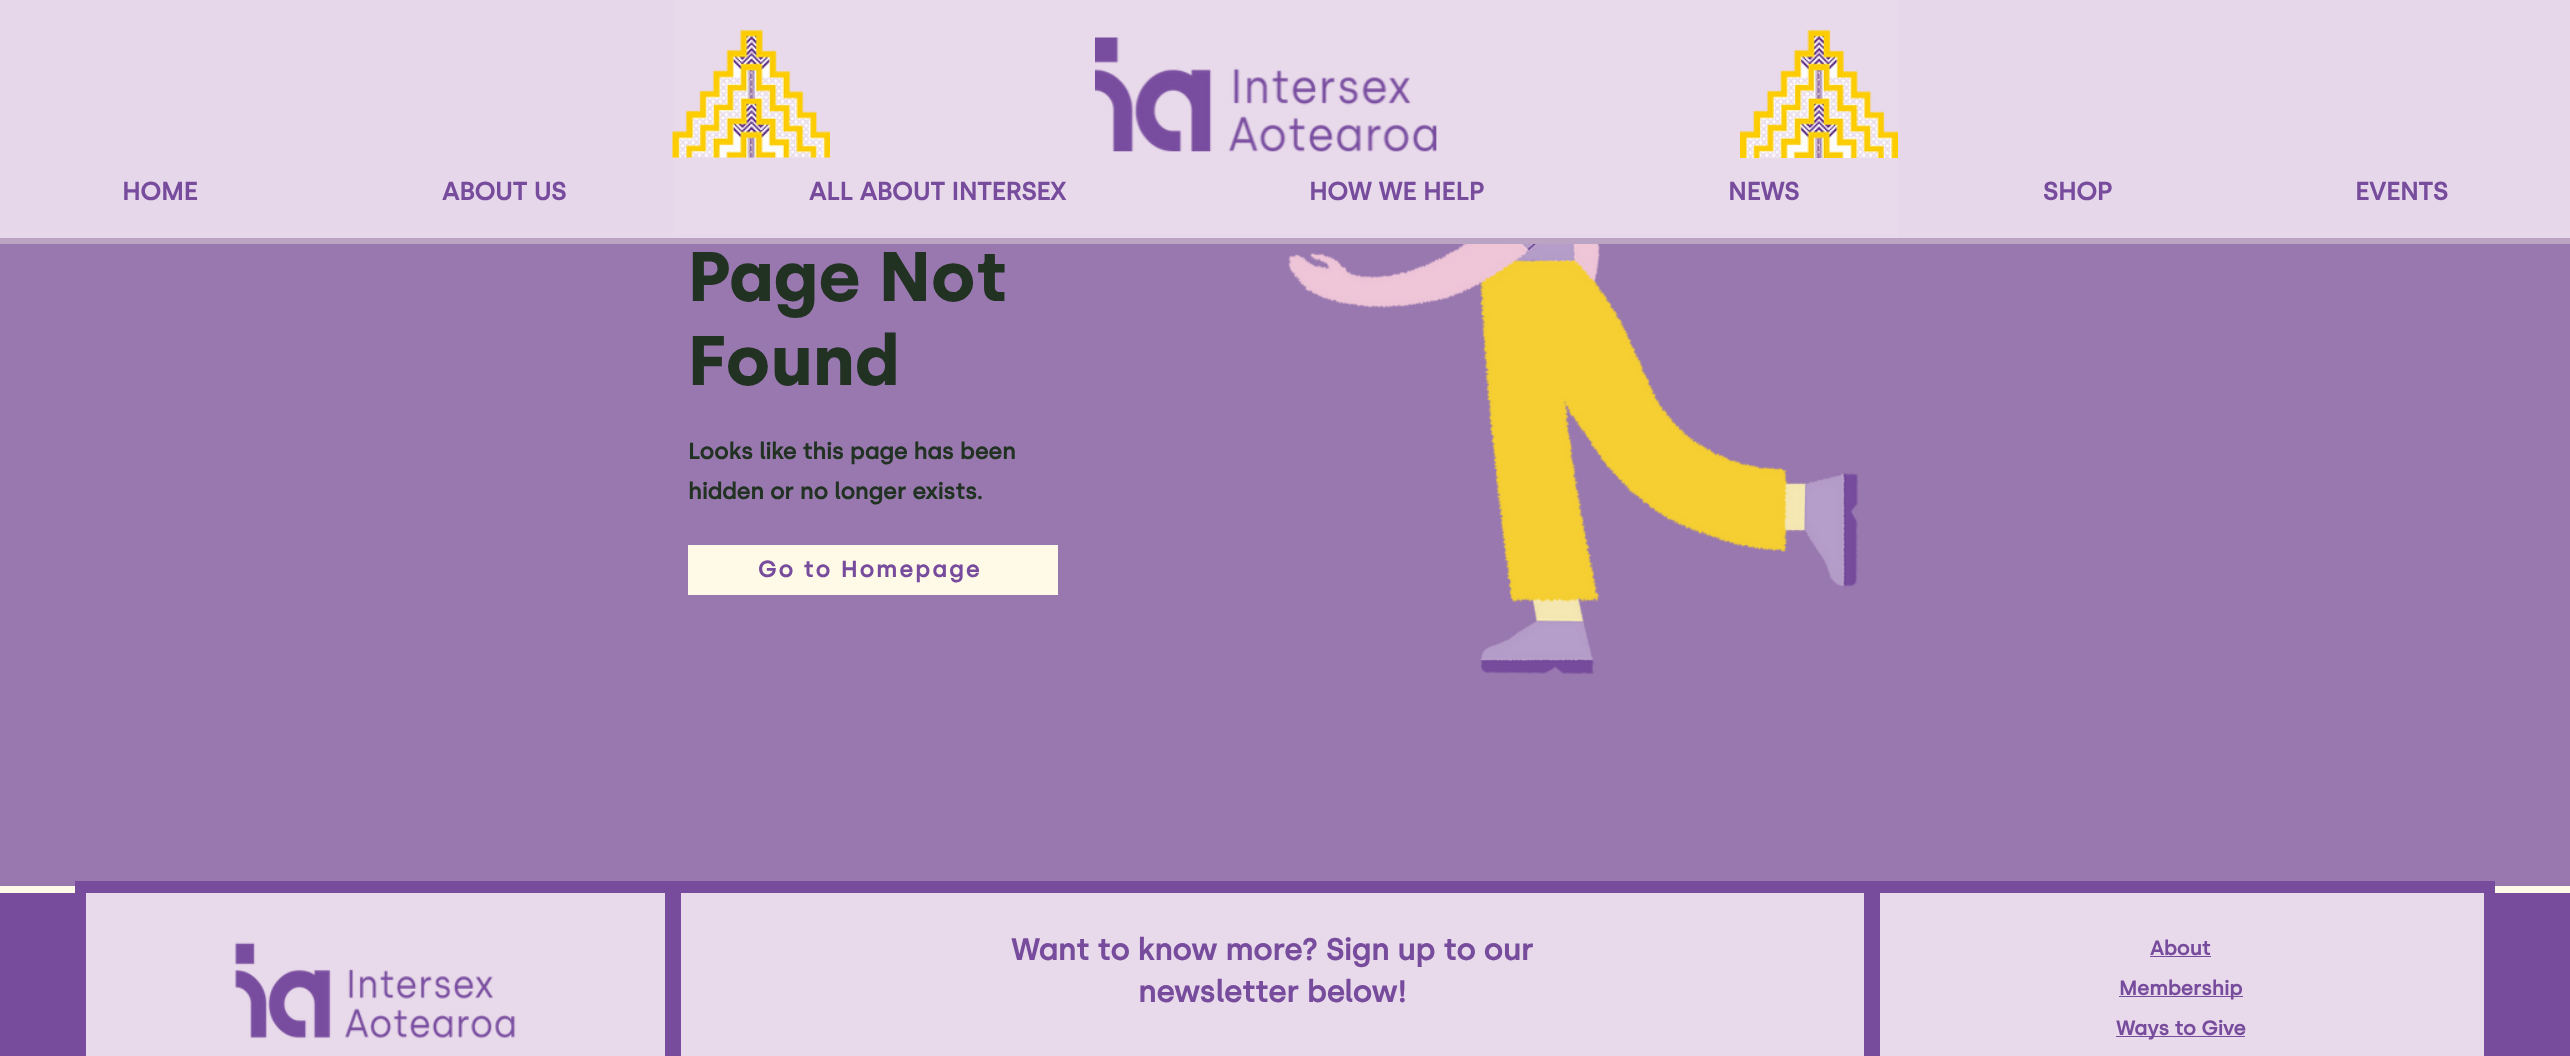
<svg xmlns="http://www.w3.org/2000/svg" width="2570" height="1056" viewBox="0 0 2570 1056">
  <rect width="100%" height="100%" fill="#774c9d"/>
  <path d="M0 0h2570v886H0z" fill="#9978b0"/>
  <path d="M0 0h2570v238H0z" fill="#e9daebf7"/>
  <path d="M0 238h2570v6H0z" fill="#bba3c3"/>
  <path d="M673 0h1225v238H673z" fill="#e9daeb"/>
  <image x="672" y="29" width="158" height="129" href="img/1.png"/>
  <image x="1095" y="37" width="342" height="115" href="img/2.png"/>
  <image x="1740" y="29" width="158" height="129" href="img/3.png"/>
  <image x="1288" y="244" width="570" height="430" href="img/4.png"/>
  <path d="M688 545h370v50H688z" fill="#fffae8"/>
  <path d="M0 886h2570v7H0z" fill="#fffae8"/>
  <path d="M75 881h2420v12H75z" fill="#774c9d"/>
  <path d="M86 893h579v163H86z" fill="#e9daeb"/>
  <image x="234" y="942" width="282" height="97" href="img/5.png"/>
  <path d="M681 893h1183v163H681z" fill="#e9daeb"/>
  <path d="M1880 893h604v163H1880z" fill="#e9daeb"/>
  <path d="M2150 956h61v1H2150z" fill="#774c9d"/>
  <path d="M2119 996h124v1H2119z" fill="#774c9d"/>
  <path d="M2116 1036h129v1H2116z" fill="#774c9d"/>
  <g font-family="'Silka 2'" font-size="25" font-weight="bold" fill="#774c9d">
    <text x="122" y="200">HOME</text>
    <text x="442" y="200">ABOUT US</text>
    <text x="809" y="200">ALL ABOUT INTERSEX</text>
    <text x="1309" y="200">HOW WE HELP</text>
    <text x="1728" y="200">NEWS</text>
    <text x="2043" y="200">SHOP</text>
    <text x="2355" y="200">EVENTS</text>
  </g>
  <g font-family="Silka" font-size="70" font-weight="bold" fill="#213222">
    <text x="688" y="301">Page Not</text>
    <text x="688" y="385">Found</text>
  </g>
  <g font-family="'Silka 2'" font-size="22.5" font-weight="bold" fill="#213222">
    <text x="688" y="459">Looks like this page has been</text>
    <text x="688" y="499">hidden or no longer exists.</text>
  </g>
  <text x="758" y="577" font-family="'Silka 2'" font-size="22.5" font-weight="bold" letter-spacing="2.25" fill="#774c9d">Go to Homepage</text>
  <g font-family="'Silka 2'" font-size="30" font-weight="bold" fill="#774c9d">
    <text x="1011" y="960">Want to know more? Sign up to our</text>
    <text x="1138" y="1002">newsletter below!</text>
  </g>
  <g font-family="'Silka 2'" font-size="20" font-weight="bold" fill="#774c9d">
    <text x="2150" y="955">About</text>
    <text x="2119" y="995">Membership</text>
    <text x="2116" y="1035">Ways to Give</text>
  </g>
</svg>
